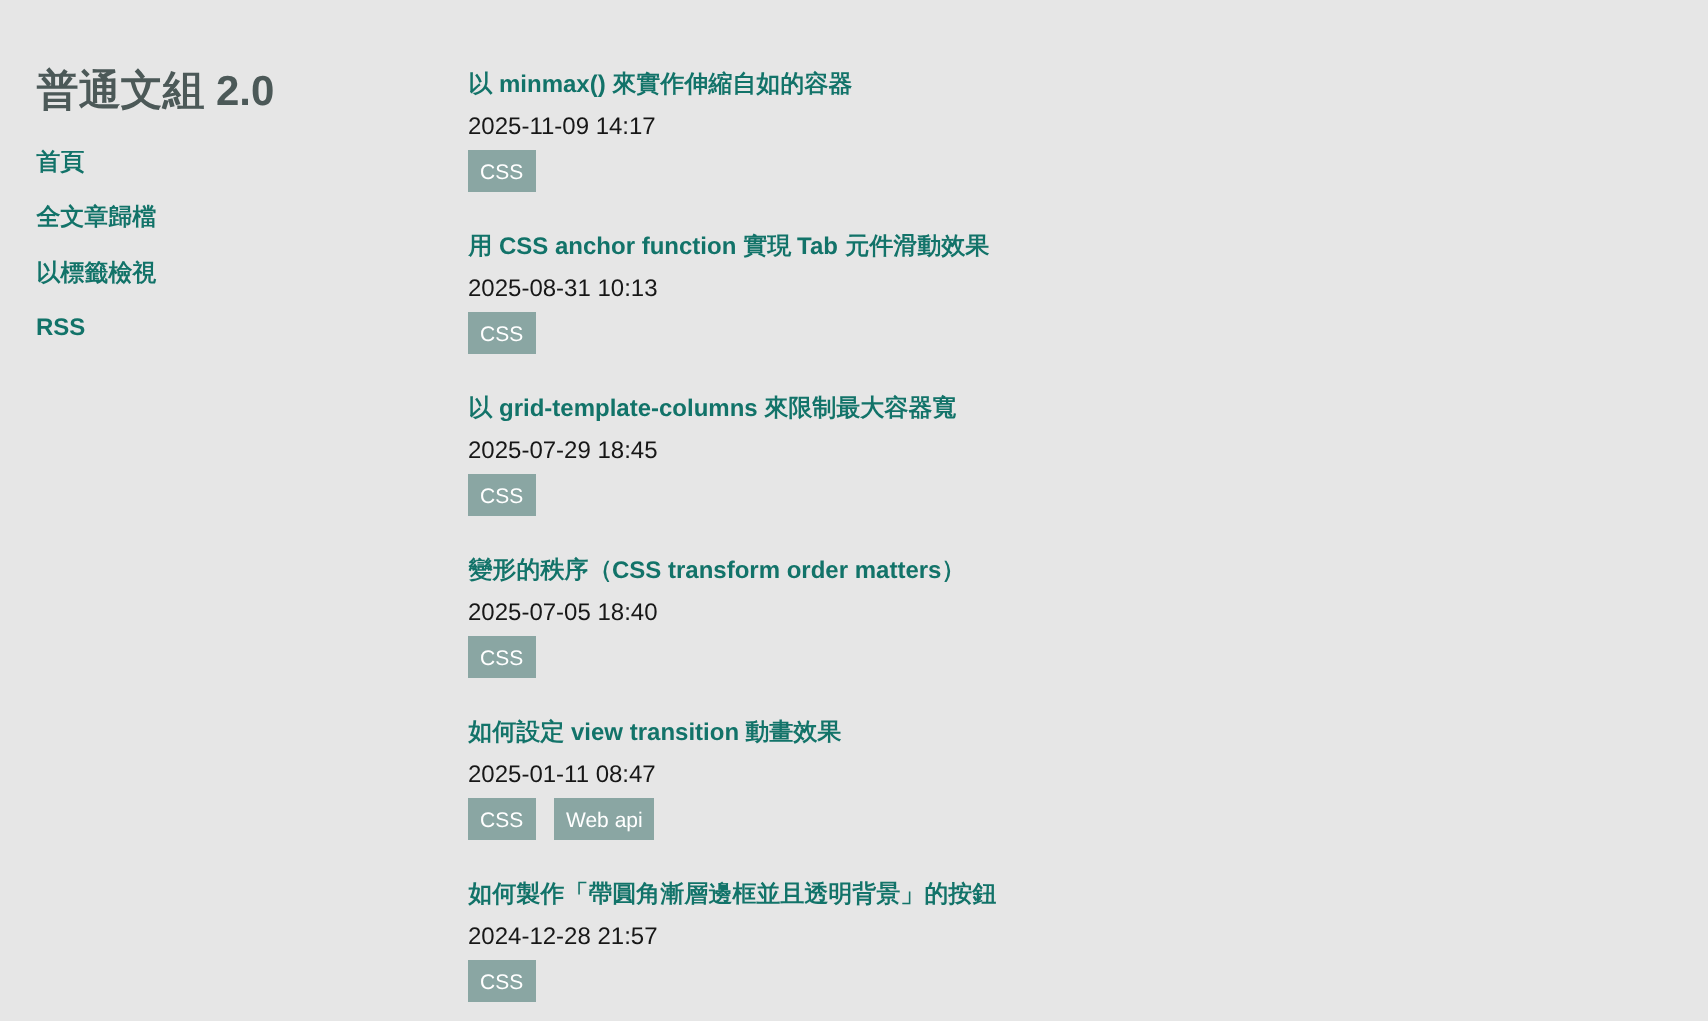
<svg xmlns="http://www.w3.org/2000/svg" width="1708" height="1021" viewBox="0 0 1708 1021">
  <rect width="100%" height="100%" fill="#e6e6e6"/>
  <path d="M468 150h68v42H468z" fill="#8aa6a3"/>
  <path d="M468 312h68v42H468z" fill="#8aa6a3"/>
  <path d="M468 474h68v42H468z" fill="#8aa6a3"/>
  <path d="M468 636h68v42H468z" fill="#8aa6a3"/>
  <path d="M468 798h68v42H468z" fill="#8aa6a3"/>
  <path d="M554 798h100v42H554z" fill="#8aa6a3"/>
  <path d="M468 960h68v42H468z" fill="#8aa6a3"/>
  <text x="36" y="105" font-family="WenQuanYi Zen Hei" font-size="42" font-weight="bold" fill="#4c5958">普通文組</text>
  <text x="216" y="105" font-family="Liberation Sans" font-size="42" font-weight="bold" fill="#4c5958">2.0</text>
  <g font-family="WenQuanYi Zen Hei" font-size="24" font-weight="bold" fill="#127369">
    <text x="36" y="170">首頁</text>
    <text x="36" y="225">全文章歸檔</text>
    <text x="36" y="281">以標籤檢視</text>
  </g>
  <text x="36" y="335" font-family="Liberation Sans" font-size="24" font-weight="bold" fill="#127369">RSS</text>
  <text x="468" y="92" font-family="WenQuanYi Zen Hei" font-size="24" font-weight="bold" fill="#127369">以</text>
  <text x="499" y="92" font-family="Liberation Sans" font-size="24" font-weight="bold" fill="#127369">minmax()</text>
  <text x="612" y="92" font-family="WenQuanYi Zen Hei" font-size="24" font-weight="bold" fill="#127369">來實作伸縮自如的容器</text>
  <text x="468" y="134" font-family="Liberation Sans" font-size="24" fill="#171717">2025-11-09 14:17</text>
  <text x="480" y="179" font-family="Liberation Sans" font-size="21" fill="#fff">CSS</text>
  <text x="468" y="254" font-family="WenQuanYi Zen Hei" font-size="24" font-weight="bold" fill="#127369">用</text>
  <text x="499" y="254" font-family="Liberation Sans" font-size="24" font-weight="bold" fill="#127369">CSS anchor function</text>
  <text x="743" y="254" font-family="WenQuanYi Zen Hei" font-size="24" font-weight="bold" fill="#127369">實現</text>
  <text x="797" y="254" font-family="Liberation Sans" font-size="24" font-weight="bold" fill="#127369">Tab</text>
  <text x="845" y="254" font-family="WenQuanYi Zen Hei" font-size="24" font-weight="bold" fill="#127369">元件滑動效果</text>
  <text x="468" y="296" font-family="Liberation Sans" font-size="24" fill="#171717">2025-08-31 10:13</text>
  <text x="480" y="341" font-family="Liberation Sans" font-size="21" fill="#fff">CSS</text>
  <text x="468" y="416" font-family="WenQuanYi Zen Hei" font-size="24" font-weight="bold" fill="#127369">以</text>
  <text x="499" y="416" font-family="Liberation Sans" font-size="24" font-weight="bold" fill="#127369">grid-template-columns</text>
  <text x="764" y="416" font-family="WenQuanYi Zen Hei" font-size="24" font-weight="bold" fill="#127369">來限制最大容器寬</text>
  <text x="468" y="458" font-family="Liberation Sans" font-size="24" fill="#171717">2025-07-29 18:45</text>
  <text x="480" y="503" font-family="Liberation Sans" font-size="21" fill="#fff">CSS</text>
  <text x="468" y="578" font-family="WenQuanYi Zen Hei" font-size="24" font-weight="bold" fill="#127369">變形的秩序（</text>
  <text x="612" y="578" font-family="Liberation Sans" font-size="24" font-weight="bold" fill="#127369">CSS transform order matters</text>
  <text x="941" y="578" font-family="WenQuanYi Zen Hei" font-size="24" font-weight="bold" fill="#127369">）</text>
  <text x="468" y="620" font-family="Liberation Sans" font-size="24" fill="#171717">2025-07-05 18:40</text>
  <text x="480" y="665" font-family="Liberation Sans" font-size="21" fill="#fff">CSS</text>
  <text x="468" y="740" font-family="WenQuanYi Zen Hei" font-size="24" font-weight="bold" fill="#127369">如何設定</text>
  <text x="571" y="740" font-family="Liberation Sans" font-size="24" font-weight="bold" fill="#127369">view transition</text>
  <text x="745" y="740" font-family="WenQuanYi Zen Hei" font-size="24" font-weight="bold" fill="#127369">動畫效果</text>
  <text x="468" y="782" font-family="Liberation Sans" font-size="24" fill="#171717">2025-01-11 08:47</text>
  <g font-family="Liberation Sans" font-size="21" fill="#fff">
    <text x="480" y="827">CSS</text>
    <text x="566" y="827">Web api</text>
  </g>
  <text x="468" y="902" font-family="WenQuanYi Zen Hei" font-size="24" font-weight="bold" fill="#127369">如何製作「帶圓角漸層邊框並且透明背景」的按鈕</text>
  <text x="468" y="944" font-family="Liberation Sans" font-size="24" fill="#171717">2024-12-28 21:57</text>
  <text x="480" y="989" font-family="Liberation Sans" font-size="21" fill="#fff">CSS</text>
</svg>
